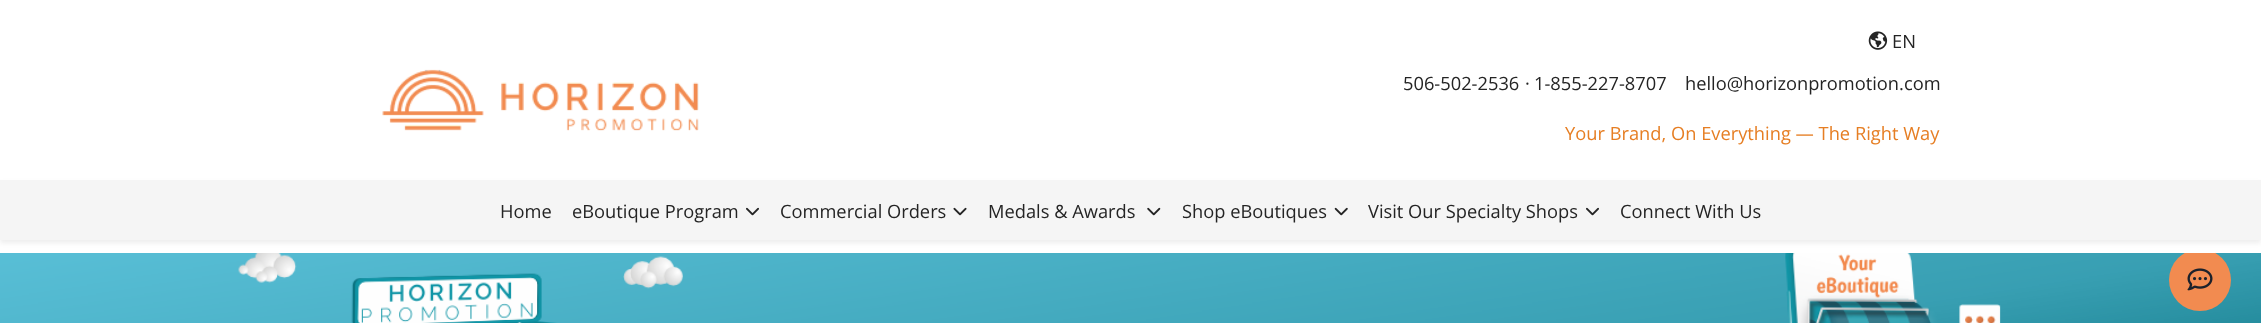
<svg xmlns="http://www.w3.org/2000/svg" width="2261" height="323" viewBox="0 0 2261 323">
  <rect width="100%" height="100%" fill="#fff"/>
  <image x="0" y="253" width="2261" height="70" href="img/8.png"/>
  <circle cx="2200" cy="280" r="31" fill="#f28b50"/>
  <path d="M2184 249h31v4H2184z" fill="#fff"/>
  <image x="382" y="69" width="317" height="62" href="img/1.png"/>
  <image x="1868" y="31" width="20" height="19" href="img/2.png"/>
  <path d="M0 183h2261v60H0z" fill="#00000012" filter="blur(2.5px)"/>
  <path d="M0 180h2261v60H0z" fill="#f5f5f5"/>
  <image x="746" y="207" width="13" height="9" href="img/3.png"/>
  <image x="953" y="207" width="14" height="9" href="img/4.png"/>
  <image x="1147" y="207" width="14" height="9" href="img/5.png"/>
  <image x="1334" y="207" width="14" height="9" href="img/6.png"/>
  <image x="1586" y="207" width="13" height="9" href="img/3.png"/>
  <image x="2187" y="268" width="26" height="23" href="img/7.png"/>
  <g font-family="Open Sans" font-size="18.3" fill="#242424">
    <text x="1892" y="48">EN</text>
    <text x="1403" y="90">506-502-2536</text>
    <text x="1525" y="90">·</text>
    <text x="1534" y="90">1-855-227-8707</text>
    <text x="1685" y="90">hello@horizonpromotion.com</text>
  </g>
  <text x="1565" y="140" font-family="Open Sans" font-size="18.3" fill="#e67e23">Your Brand, On Everything — The Right Way</text>
  <g font-family="Open Sans" font-size="18.3" fill="#242424">
    <text x="500" y="218">Home</text>
    <text x="572" y="218">eBoutique Program</text>
    <text x="780" y="218">Commercial Orders</text>
    <text x="988" y="218">Medals &amp; Awards</text>
    <text x="1182" y="218">Shop eBoutiques</text>
    <text x="1368" y="218">Visit Our Specialty Shops</text>
    <text x="1620" y="218">Connect With Us</text>
  </g>
</svg>
